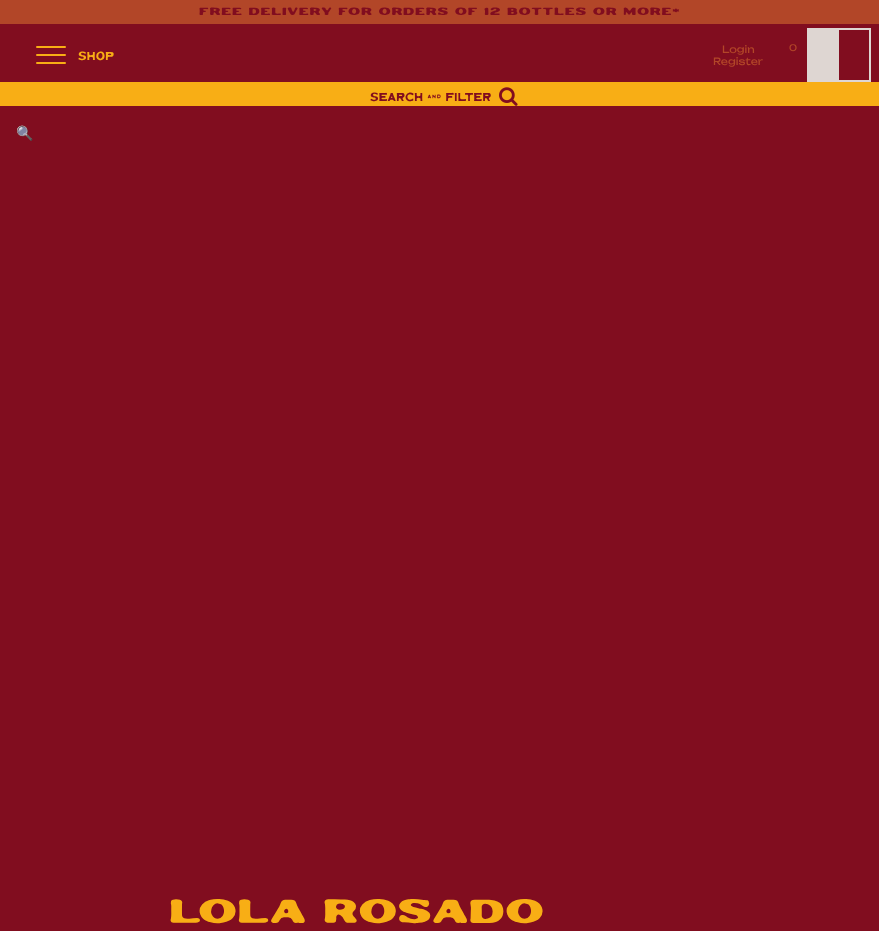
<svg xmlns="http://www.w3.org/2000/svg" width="879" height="931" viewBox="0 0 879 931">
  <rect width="100%" height="100%" fill="#810d1f"/>
  <path d="M0 0h879v24H0z" fill="#b24628"/>
  <rect x="36" y="54" width="30" height="2" rx="1" fill="#f8ae15"/>
  <rect x="36" y="46" width="30" height="2" rx="1" fill="#f8ae15"/>
  <rect x="36" y="62" width="30" height="2" rx="1" fill="#f8ae15"/>
  <path d="M807 28h64v54H807z" fill="#ded6d2"/>
  <path d="M839 30h30v50H839z" fill="#810d1f"/>
  <path d="M0 82h879v24H0z" fill="#f8ae15"/>
  <image x="499" y="87" width="19" height="19" href="img/1.png"/>
  <text x="199" y="15" font-family="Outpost" font-size="10" font-weight="bold" letter-spacing="1" fill="#810d1f">FREE DELIVERY FOR ORDERS OF 12 BOTTLES OR MORE*</text>
  <text x="78" y="60" font-family="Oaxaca" font-size="12" fill="#f8ae15">SHOP</text>
  <g font-family="Unbounded" font-size="10" fill="#b24628">
    <text x="722" y="53">Login</text>
    <text x="713" y="65">Register</text>
  </g>
  <text x="789" y="51" font-family="Unbounded" font-size="9" fill="#b24628">0</text>
  <text x="370" y="101" font-family="Oaxaca" font-size="12" fill="#810d1f">SEARCH &amp; FILTER</text>
  <text x="16" y="138" font-family="Noto Color Emoji" font-size="14" fill="#303030">🔍</text>
  <text x="169" y="923" font-family="Outpost" font-size="32" font-weight="bold" letter-spacing="1" fill="#f8ae15">LOLA ROSADO</text>
</svg>
